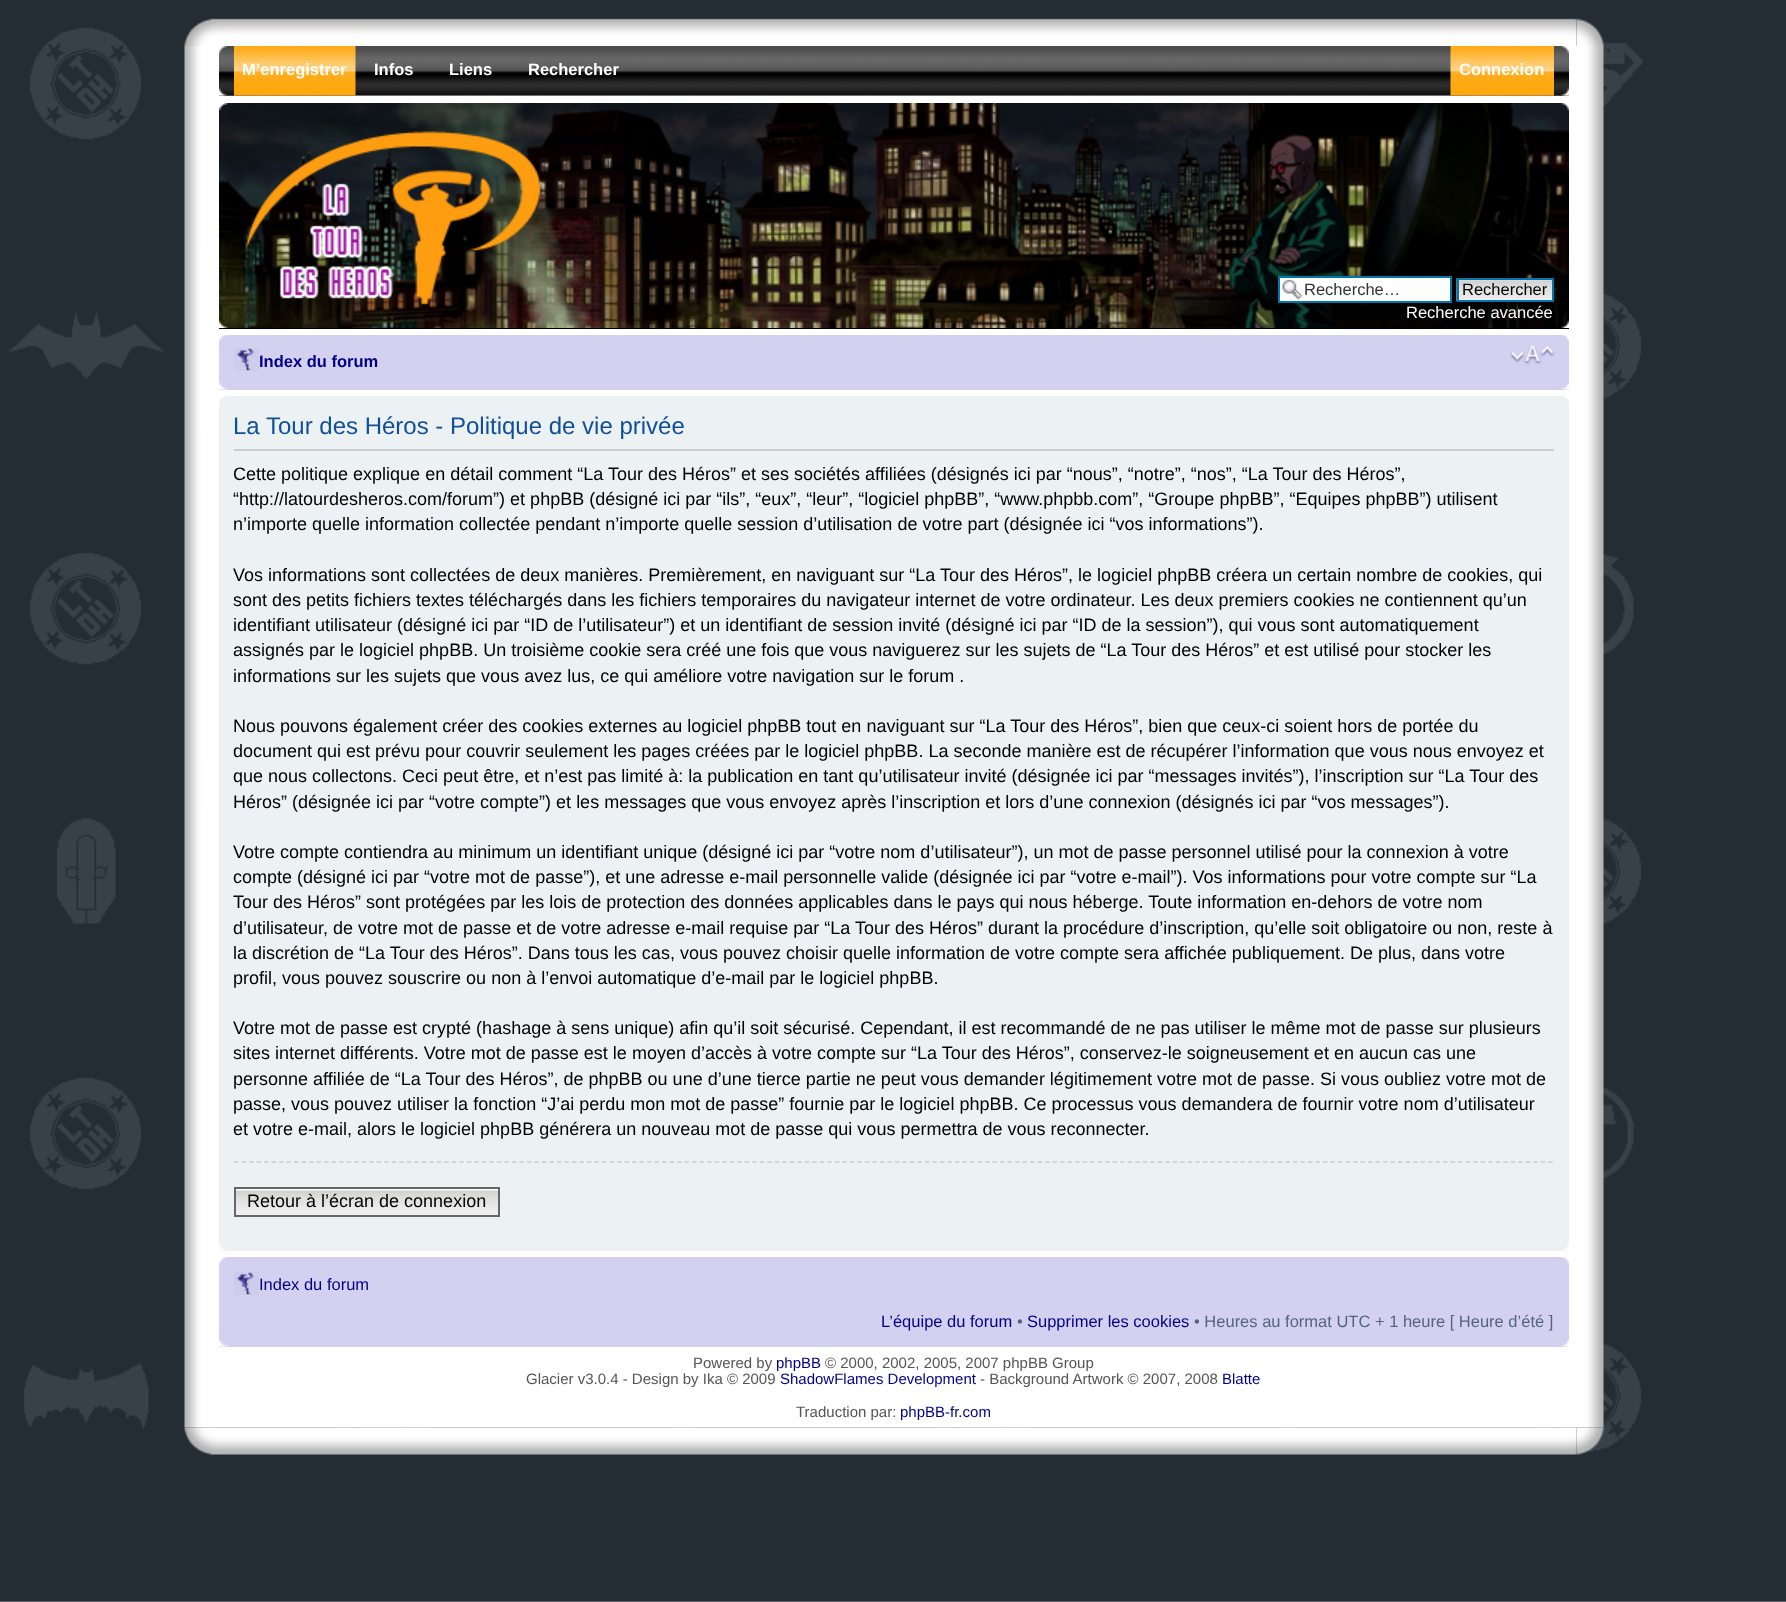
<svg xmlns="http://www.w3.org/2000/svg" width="1786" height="1602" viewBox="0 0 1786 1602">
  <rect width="100%" height="100%" fill="#fff"/>
  <image x="0" y="1601" width="1786" height="1" href="img/1.png"/>
  <image x="0" y="0" width="1786" height="1602" href="img/2.png"/>
  <image x="184" y="18" width="29" height="28" href="img/3.png"/>
  <image x="211" y="18" width="1366" height="28" href="img/4.png"/>
  <image x="1576" y="18" width="28" height="28" href="img/5.png"/>
  <image x="184" y="46" width="1420" height="1382" href="img/6.png"/>
  <path d="M219 95h1350v1H219z" fill="#ccc"/>
  <image x="219" y="46" width="1350" height="50" href="img/7.png"/>
  <image x="219" y="46" width="15" height="50" href="img/8.png"/>
  <image x="234" y="46" width="122" height="50" href="img/9.png"/>
  <image x="1450" y="46" width="104" height="50" href="img/10.png"/>
  <image x="1554" y="46" width="15" height="50" href="img/11.png"/>
  <path d="M219 328h1350v1H219z" fill="#000"/>
  <image x="219" y="103" width="1350" height="225" href="img/12.png"/>
  <image x="219" y="103" width="10" height="8" href="img/13.png"/>
  <image x="1560" y="103" width="9" height="8" href="img/14.png"/>
  <image x="245" y="131" width="296" height="174" href="img/15.png"/>
  <path d="M1280 278h170v23H1280z" fill="#fff"/>
  <image x="1282" y="279" width="21" height="21" href="img/16.png"/>
  <path d="M1279 277h172v25H1279z" fill="none" stroke="#0075b0" stroke-width="2"/>
  <image x="1456" y="278" width="96" height="23" href="img/17.png"/>
  <path d="M1458 279h95v22H1458z" fill="none" stroke="#0075b0" stroke-width="2"/>
  <image x="219" y="320" width="10" height="8" href="img/18.png"/>
  <image x="1561" y="320" width="8" height="8" href="img/19.png"/>
  <path d="M219 335h1350v55H219z" fill="#d3d1ef"/>
  <image x="219" y="335" width="8" height="7" href="img/20.png"/>
  <image x="1562" y="335" width="7" height="7" href="img/21.png"/>
  <image x="234" y="348" width="25" height="23" href="img/22.png"/>
  <image x="1510" y="345" width="44" height="20" href="img/23.png"/>
  <image x="219" y="382" width="9" height="8" href="img/24.png"/>
  <image x="1561" y="382" width="8" height="8" href="img/25.png"/>
  <path d="M219 396h1350v855H219z" fill="#ecf1f3"/>
  <image x="219" y="396" width="8" height="7" href="img/26.png"/>
  <image x="1562" y="396" width="7" height="7" href="img/27.png"/>
  <path d="M234 449h1320v2H234z" fill="#ccc"/>
  <path d="M234 1162H1554" fill="none" stroke="#ccc" stroke-width="1.5" stroke-dasharray="4.5 3.01"/>
  <image x="236" y="1189" width="262" height="26" href="img/28.png"/>
  <path d="M235 1188h264v28H235z" fill="none" stroke="#666" stroke-width="2"/>
  <image x="219" y="1243" width="8" height="8" href="img/29.png"/>
  <image x="1562" y="1243" width="7" height="8" href="img/30.png"/>
  <path d="M219 1257h1350v90H219z" fill="#d3d1ef"/>
  <image x="219" y="1257" width="9" height="7" href="img/31.png"/>
  <image x="1561" y="1257" width="8" height="7" href="img/32.png"/>
  <image x="234" y="1272" width="25" height="23" href="img/22.png"/>
  <image x="219" y="1339" width="9" height="8" href="img/24.png"/>
  <image x="1561" y="1339" width="8" height="8" href="img/25.png"/>
  <image x="184" y="1427" width="29" height="28" href="img/33.png"/>
  <image x="211" y="1427" width="1366" height="28" href="img/34.png"/>
  <image x="1576" y="1427" width="28" height="28" href="img/35.png"/>
  <g font-family="Liberation Sans" font-size="16.5" font-weight="bold" fill="#fff">
    <text x="242" y="75">M’enregistrer</text>
    <text x="374" y="75">Infos</text>
    <text x="449" y="75">Liens</text>
    <text x="528" y="75">Rechercher</text>
    <text x="1459" y="75">Connexion</text>
  </g>
  <text x="1304" y="295" font-family="Liberation Sans" font-size="16.5" fill="#333">Recherche…</text>
  <text x="1462" y="295" font-family="Liberation Sans" font-size="16.5" fill="#000">Rechercher</text>
  <text x="1406" y="318" font-family="Liberation Sans" font-size="16.5" fill="#fff">Recherche avancée</text>
  <text x="259" y="367" font-family="Liberation Sans" font-size="16.5" font-weight="bold" fill="#008">Index du forum</text>
  <text x="233" y="434" font-family="Liberation Sans" font-size="24" fill="#115098">La Tour des Héros - Politique de vie privée</text>
  <g font-family="Liberation Sans" font-size="18" fill="#000">
    <text x="233" y="480">Cette politique explique en détail comment “La Tour des Héros” et ses sociétés affiliées (désignés ici par “nous”, “notre”, “nos”, “La Tour des Héros”,</text>
    <text x="233" y="505">“http://latourdesheros.com/forum”) et phpBB (désigné ici par “ils”, “eux”, “leur”, “logiciel phpBB”, “www.phpbb.com”, “Groupe phpBB”, “Equipes phpBB”) utilisent</text>
    <text x="233" y="530">n’importe quelle information collectée pendant n’importe quelle session d’utilisation de votre part (désignée ici “vos informations”).</text>
    <text x="233" y="581">Vos informations sont collectées de deux manières. Premièrement, en naviguant sur “La Tour des Héros”, le logiciel phpBB créera un certain nombre de cookies, qui</text>
    <text x="233" y="606">sont des petits fichiers textes téléchargés dans les fichiers temporaires du navigateur internet de votre ordinateur. Les deux premiers cookies ne contiennent qu’un</text>
    <text x="233" y="631">identifiant utilisateur (désigné ici par “ID de l’utilisateur”) et un identifiant de session invité (désigné ici par “ID de la session”), qui vous sont automatiquement</text>
    <text x="233" y="656">assignés par le logiciel phpBB. Un troisième cookie sera créé une fois que vous naviguerez sur les sujets de “La Tour des Héros” et est utilisé pour stocker les</text>
    <text x="233" y="682">informations sur les sujets que vous avez lus, ce qui améliore votre navigation sur le forum .</text>
    <text x="233" y="732">Nous pouvons également créer des cookies externes au logiciel phpBB tout en naviguant sur “La Tour des Héros”, bien que ceux-ci soient hors de portée du</text>
    <text x="233" y="757">document qui est prévu pour couvrir seulement les pages créées par le logiciel phpBB. La seconde manière est de récupérer l’information que vous nous envoyez et</text>
    <text x="233" y="782">que nous collectons. Ceci peut être, et n’est pas limité à: la publication en tant qu’utilisateur invité (désignée ici par “messages invités”), l’inscription sur “La Tour des</text>
    <text x="233" y="808">Héros” (désignée ici par “votre compte”) et les messages que vous envoyez après l’inscription et lors d’une connexion (désignés ici par “vos messages”).</text>
    <text x="233" y="858">Votre compte contiendra au minimum un identifiant unique (désigné ici par “votre nom d’utilisateur”), un mot de passe personnel utilisé pour la connexion à votre</text>
    <text x="233" y="883">compte (désigné ici par “votre mot de passe”), et une adresse e-mail personnelle valide (désignée ici par “votre e-mail”). Vos informations pour votre compte sur “La</text>
    <text x="233" y="908">Tour des Héros” sont protégées par les lois de protection des données applicables dans le pays qui nous héberge. Toute information en-dehors de votre nom</text>
    <text x="233" y="934">d’utilisateur, de votre mot de passe et de votre adresse e-mail requise par “La Tour des Héros” durant la procédure d’inscription, qu’elle soit obligatoire ou non, reste à</text>
    <text x="233" y="959">la discrétion de “La Tour des Héros”. Dans tous les cas, vous pouvez choisir quelle information de votre compte sera affichée publiquement. De plus, dans votre</text>
    <text x="233" y="984">profil, vous pouvez souscrire ou non à l’envoi automatique d’e-mail par le logiciel phpBB.</text>
    <text x="233" y="1034">Votre mot de passe est crypté (hashage à sens unique) afin qu’il soit sécurisé. Cependant, il est recommandé de ne pas utiliser le même mot de passe sur plusieurs</text>
    <text x="233" y="1059">sites internet différents. Votre mot de passe est le moyen d’accès à votre compte sur “La Tour des Héros”, conservez-le soigneusement et en aucun cas une</text>
    <text x="233" y="1085">personne affiliée de “La Tour des Héros”, de phpBB ou une d’une tierce partie ne peut vous demander légitimement votre mot de passe. Si vous oubliez votre mot de</text>
    <text x="233" y="1110">passe, vous pouvez utiliser la fonction “J’ai perdu mon mot de passe” fournie par le logiciel phpBB. Ce processus vous demandera de fournir votre nom d’utilisateur</text>
    <text x="233" y="1135">et votre e-mail, alors le logiciel phpBB générera un nouveau mot de passe qui vous permettra de vous reconnecter.</text>
    <text x="247" y="1207">Retour à l’écran de connexion</text>
  </g>
  <g font-family="Liberation Sans" font-size="16.5" fill="#008">
    <text x="259" y="1290">Index du forum</text>
    <text x="881" y="1327">L’équipe du forum</text>
  </g>
  <text x="1017" y="1327" font-family="Liberation Sans" font-size="16.5" fill="#536482">•</text>
  <text x="1027" y="1327" font-family="Liberation Sans" font-size="16.5" fill="#008">Supprimer les cookies</text>
  <text x="1194" y="1327" font-family="Liberation Sans" font-size="16.5" fill="#536482">• Heures au format UTC + 1 heure [ Heure d’été ]</text>
  <text x="693" y="1368" font-family="Liberation Sans" font-size="15" fill="#555">Powered by</text>
  <text x="776" y="1368" font-family="Liberation Sans" font-size="15" fill="#008">phpBB</text>
  <g font-family="Liberation Sans" font-size="15" fill="#555">
    <text x="825" y="1368">© 2000, 2002, 2005, 2007 phpBB Group</text>
    <text x="526" y="1384">Glacier v3.0.4 - Design by Ika © 2009</text>
  </g>
  <text x="780" y="1384" font-family="Liberation Sans" font-size="15" fill="#008">ShadowFlames Development</text>
  <text x="980" y="1384" font-family="Liberation Sans" font-size="15" fill="#555">- Background Artwork © 2007, 2008</text>
  <text x="1222" y="1384" font-family="Liberation Sans" font-size="15" fill="#008">Blatte</text>
  <text x="796" y="1417" font-family="Liberation Sans" font-size="15" fill="#555">Traduction par:</text>
  <text x="900" y="1417" font-family="Liberation Sans" font-size="15" fill="#008">phpBB-fr.com</text>
</svg>
